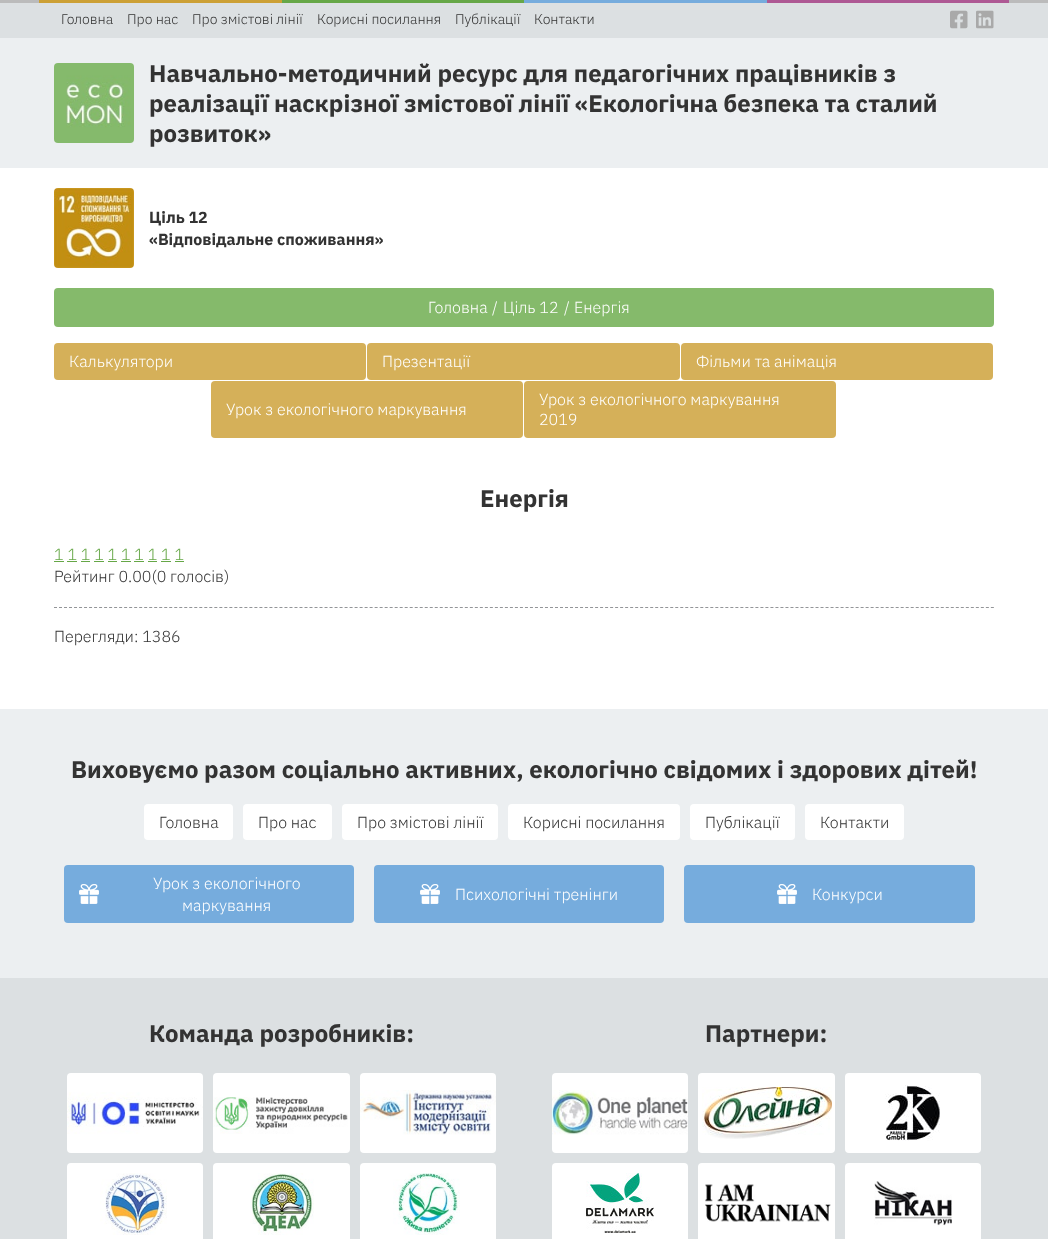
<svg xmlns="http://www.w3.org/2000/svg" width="1048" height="1239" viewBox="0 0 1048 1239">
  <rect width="100%" height="100%" fill="#fff"/>
  <path d="M0 0h1048v3H0z" fill="#bbb"/>
  <path d="M39 0h243v3H39z" fill="#cca035"/>
  <path d="M282 0h242v3H282z" fill="#66a747"/>
  <path d="M524 0h243v3H524z" fill="#76acdd"/>
  <path d="M767 0h242v3H767z" fill="#ae5994"/>
  <path d="M0 3h1048v35H0z" fill="#dce0e2"/>
  <image x="950" y="10" width="18" height="19" href="img/1.png"/>
  <image x="976" y="10" width="18" height="19" href="img/2.png"/>
  <path d="M0 38h1048v130H0z" fill="#eceff1"/>
  <image x="54" y="63" width="80" height="80" href="img/3.png"/>
  <image x="54" y="188" width="80" height="80" href="img/4.png"/>
  <rect x="54" y="288" width="940" height="39" rx="4" fill="#85ba6b"/>
  <rect x="54" y="343" width="312" height="37" rx="4" fill="#d5b059"/>
  <rect x="367" y="343" width="313" height="37" rx="4" fill="#d5b059"/>
  <rect x="681" y="343" width="312" height="37" rx="4" fill="#d5b059"/>
  <rect x="211" y="381" width="312" height="57" rx="4" fill="#d5b059"/>
  <rect x="524" y="381" width="312" height="57" rx="4" fill="#d5b059"/>
  <path d="M54 561h10v1H54z" fill="#66a747"/>
  <path d="M67 561h10v1H67z" fill="#66a747"/>
  <path d="M81 561h9v1H81z" fill="#66a747"/>
  <path d="M94 561h10v1H94z" fill="#66a747"/>
  <path d="M108 561h9v1H108z" fill="#66a747"/>
  <path d="M121 561h10v1H121z" fill="#66a747"/>
  <path d="M134 561h10v1H134z" fill="#66a747"/>
  <path d="M148 561h9v1H148z" fill="#66a747"/>
  <path d="M161 561h10v1H161z" fill="#66a747"/>
  <path d="M175 561h9v1H175z" fill="#66a747"/>
  <path d="M54 607.5H994" fill="none" stroke="#939598" stroke-dasharray="3 2.01"/>
  <path d="M0 709h1048v269H0z" fill="#eceff1"/>
  <rect x="144" y="804" width="89" height="36" rx="4" fill="#fff"/>
  <rect x="243" y="804" width="89" height="36" rx="4" fill="#fff"/>
  <rect x="342" y="804" width="156" height="36" rx="4" fill="#fff"/>
  <rect x="508" y="804" width="172" height="36" rx="4" fill="#fff"/>
  <rect x="690" y="804" width="105" height="36" rx="4" fill="#fff"/>
  <rect x="805" y="804" width="99" height="36" rx="4" fill="#fff"/>
  <rect x="64" y="865" width="290" height="58" rx="4" fill="#76acdd"/>
  <image x="79" y="884" width="20" height="20" href="img/5.png"/>
  <rect x="374" y="865" width="290" height="58" rx="4" fill="#76acdd"/>
  <image x="420" y="884" width="20" height="20" href="img/5.png"/>
  <rect x="684" y="865" width="291" height="58" rx="4" fill="#76acdd"/>
  <image x="777" y="884" width="20" height="20" href="img/5.png"/>
  <path d="M0 978h1048v261H0z" fill="#dce0e2"/>
  <rect x="67" y="1073" width="136" height="80" rx="4" fill="#fff"/>
  <image x="67" y="1092" width="136" height="42" href="img/6.png"/>
  <rect x="213" y="1073" width="137" height="80" rx="4" fill="#fff"/>
  <image x="213" y="1097" width="135" height="37" href="img/7.png"/>
  <rect x="360" y="1073" width="136" height="80" rx="4" fill="#fff"/>
  <image x="360" y="1090" width="136" height="45" href="img/8.png"/>
  <rect x="67" y="1163" width="136" height="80" rx="4" fill="#fff"/>
  <image x="100" y="1173" width="67" height="62" href="img/9.png"/>
  <rect x="213" y="1163" width="137" height="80" rx="4" fill="#fff"/>
  <image x="250" y="1173" width="64" height="62" href="img/10.png"/>
  <rect x="360" y="1163" width="136" height="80" rx="4" fill="#fff"/>
  <image x="393" y="1173" width="67" height="62" href="img/11.png"/>
  <rect x="552" y="1073" width="136" height="80" rx="4" fill="#fff"/>
  <image x="552" y="1090" width="136" height="45" href="img/12.png"/>
  <rect x="698" y="1073" width="137" height="80" rx="4" fill="#fff"/>
  <image x="702" y="1087" width="130" height="52" href="img/13.png"/>
  <rect x="845" y="1073" width="136" height="80" rx="4" fill="#fff"/>
  <image x="885" y="1085" width="55" height="56" href="img/14.png"/>
  <rect x="552" y="1163" width="136" height="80" rx="4" fill="#fff"/>
  <image x="586" y="1173" width="68" height="60" href="img/15.png"/>
  <rect x="698" y="1163" width="137" height="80" rx="4" fill="#fff"/>
  <image x="705" y="1184" width="126" height="38" href="img/16.png"/>
  <rect x="845" y="1163" width="136" height="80" rx="4" fill="#fff"/>
  <image x="874" y="1181" width="78" height="45" href="img/17.png"/>
  <g font-family="IBM Plex Sans" font-size="14" font-weight="300" fill="#333">
    <text x="61" y="24">Головна</text>
    <text x="127" y="24">Про нас</text>
    <text x="192" y="24">Про змістові лінії</text>
    <text x="317" y="24">Корисні посилання</text>
    <text x="455" y="24">Публікації</text>
    <text x="534" y="24">Контакти</text>
  </g>
  <g font-family="IBM Plex Sans" font-size="24" font-weight="bold" fill="#333">
    <text x="149" y="82">Навчально-методичний ресурс для педагогічних працівників з</text>
    <text x="149" y="112">реалізації наскрізної змістової лінії «Екологічна безпека та сталий</text>
    <text x="149" y="142">розвиток»</text>
  </g>
  <g font-family="IBM Plex Sans" font-size="16" font-weight="bold" fill="#333">
    <text x="149" y="223">Ціль 12</text>
    <text x="149" y="245">«Відповідальне споживання»</text>
  </g>
  <g font-family="IBM Plex Sans" font-size="16" font-weight="300" fill="#fff">
    <text x="428" y="313">Головна</text>
    <text x="492" y="313">/</text>
    <text x="503" y="313">Ціль 12</text>
    <text x="564" y="313">/</text>
    <text x="574" y="313">Енергія</text>
    <text x="69" y="367">Калькулятори</text>
    <text x="382" y="367">Презентації</text>
    <text x="696" y="367">Фільми та анімація</text>
    <text x="226" y="415">Урок з екологічного маркування</text>
    <text x="539" y="405">Урок з екологічного маркування</text>
    <text x="539" y="425">2019</text>
  </g>
  <text x="480" y="507" font-family="IBM Plex Sans" font-size="24" font-weight="bold" fill="#333">Енергія</text>
  <text x="54" y="560" font-family="IBM Plex Sans" font-size="16" font-weight="300" fill="#66a747">1 1 1 1 1 1 1 1 1 1</text>
  <g font-family="IBM Plex Sans" font-size="16" font-weight="300" fill="#333">
    <text x="54" y="582">Рейтинг 0.00(0 голосів)</text>
    <text x="54" y="642">Перегляди: 1386</text>
  </g>
  <text x="71" y="778" font-family="IBM Plex Sans" font-size="24" font-weight="bold" fill="#333">Виховуємо разом соціально активних, екологічно свідомих і здорових дітей!</text>
  <g font-family="IBM Plex Sans" font-size="16" font-weight="300" fill="#333">
    <text x="159" y="828">Головна</text>
    <text x="258" y="828">Про нас</text>
    <text x="357" y="828">Про змістові лінії</text>
    <text x="523" y="828">Корисні посилання</text>
    <text x="705" y="828">Публікації</text>
    <text x="820" y="828">Контакти</text>
  </g>
  <g font-family="IBM Plex Sans" font-size="16" font-weight="300" fill="#fff">
    <text x="153" y="889">Урок з екологічного</text>
    <text x="182" y="911">маркування</text>
    <text x="455" y="900">Психологічні тренінги</text>
    <text x="812" y="900">Конкурси</text>
  </g>
  <g font-family="IBM Plex Sans" font-size="24" font-weight="bold" fill="#333">
    <text x="149" y="1042">Команда розробників:</text>
    <text x="705" y="1042">Партнери:</text>
  </g>
</svg>
